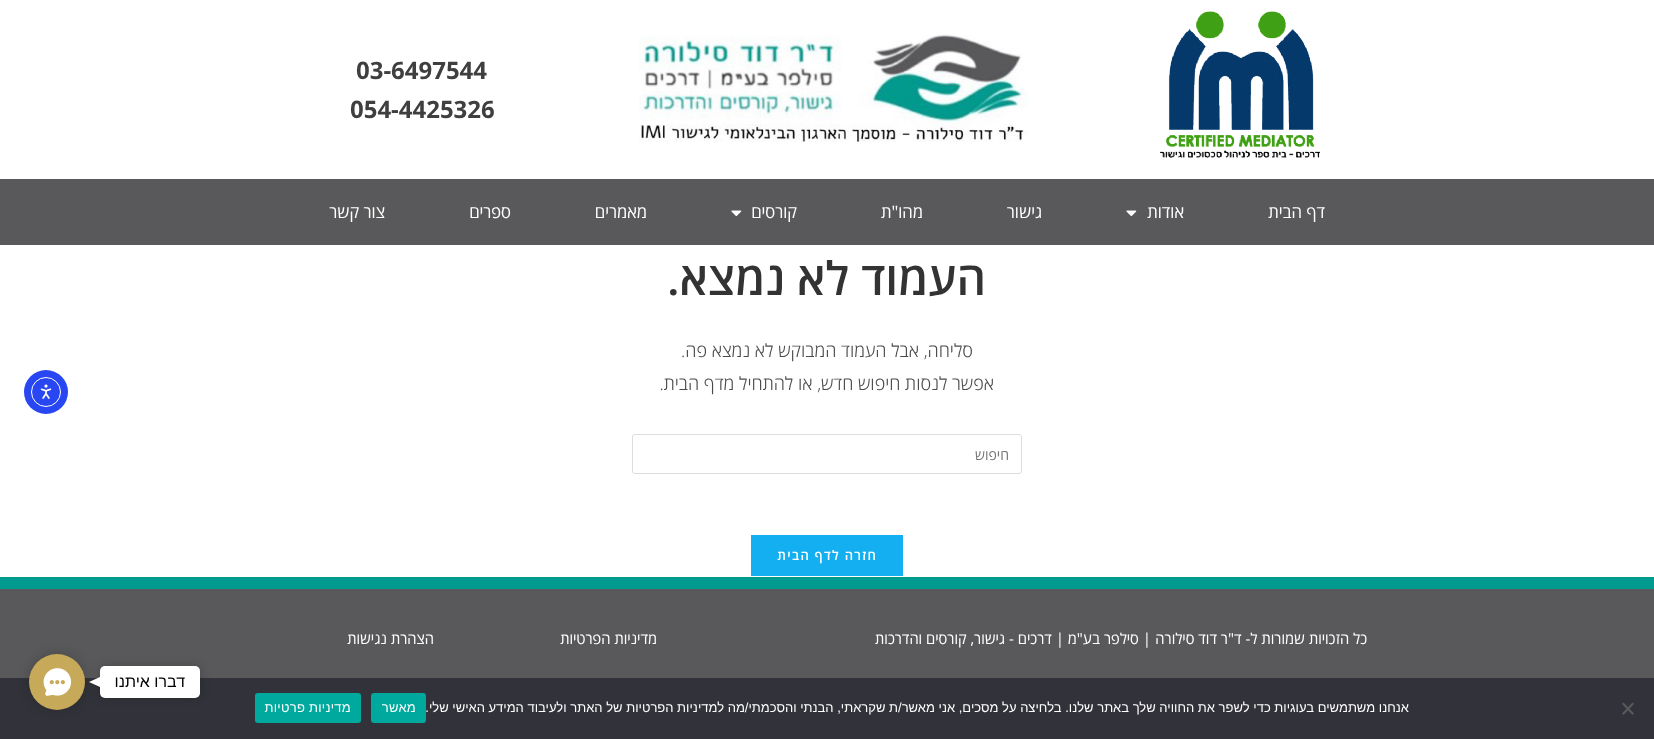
<svg xmlns="http://www.w3.org/2000/svg" width="1654" height="739" viewBox="0 0 1654 739">
  <rect width="100%" height="100%" fill="#fff"/>
  <image x="1160" y="11" width="160" height="147" href="img/1.png"/>
  <image x="639" y="34" width="389" height="108" href="img/2.png"/>
  <path d="M0 179h1654v66H0z" fill="#59595b"/>
  <image x="1126" y="210" width="11" height="7" href="img/3.png"/>
  <image x="731" y="210" width="11" height="7" href="img/3.png"/>
  <rect x="632.5" y="434.5" width="389" height="39" rx="2.5" fill="none" stroke="#ddd"/>
  <path d="M751 535h152v41H751z" fill="#13aff0"/>
  <path d="M0 589h1654v89H0z" fill="#59595b"/>
  <path d="M0 577h1654v12H0z" fill="#009a8e"/>
  <circle cx="46" cy="392" r="22" fill="#2847f3"/>
  <circle cx="46" cy="392" r="14.5" fill="none" stroke="#fff"/>
  <image x="40" y="384" width="12" height="15" href="img/4.png"/>
  <path d="M0 678h1654v61H0z" fill="#32323a"/>
  <rect x="29" y="654" width="56" height="56" rx="28" fill="#00000033" filter="blur(6px)"/>
  <circle cx="57" cy="682" r="28" fill="#c7aa59"/>
  <rect x="100" y="666" width="100" height="32" rx="5" fill="#00000033" filter="blur(5px)"/>
  <rect x="100" y="666" width="100" height="32" rx="5" fill="#fff"/>
  <path d="M100 677V687L89 682Z" fill="#fff"/>
  <image x="43" y="668" width="29" height="28" href="img/5.png"/>
  <path d="M1632.5 702.5L1634 704L1623.5 715L1622 713.5Z" fill="#59595d"/>
  <path d="M1622 704L1623.5 702.5L1634 713.5L1632.5 715Z" fill="#59595d"/>
  <rect x="371" y="693" width="55" height="30" rx="3" fill="#00a99d"/>
  <rect x="255" y="693" width="106" height="30" rx="3" fill="#00a99d"/>
  <g font-family="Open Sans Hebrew" font-size="24" font-weight="bold" fill="#3f3f3f">
    <text x="356" y="79">03-6497544</text>
    <text x="350" y="118">054-4425326</text>
  </g>
  <g font-family="Open Sans Hebrew" font-size="17" direction="rtl" fill="#fff">
    <text x="1325" y="218">דף הבית</text>
    <text x="1184" y="218">אודות</text>
    <text x="1042" y="218">גישור</text>
    <text x="923" y="218">מהו"ת</text>
    <text x="797" y="218">קורסים</text>
    <text x="647" y="218">מאמרים</text>
    <text x="511" y="218">ספרים</text>
    <text x="385" y="218">צור קשר</text>
  </g>
  <text x="986" y="295" font-family="Open Sans" font-size="46" font-weight="600" direction="rtl" fill="#333">העמוד לא נמצא.</text>
  <g font-family="Open Sans" font-size="18" font-weight="300" direction="rtl" fill="#4a4a4a">
    <text x="973" y="357">סליחה, אבל העמוד המבוקש לא נמצא פה.</text>
    <text x="994" y="390">אפשר לנסות חיפוש חדש, או להתחיל מדף הבית.</text>
  </g>
  <text x="1009" y="460" font-family="Open Sans" font-size="14" direction="rtl" fill="#757575">חיפוש</text>
  <text x="877" y="560" font-family="Open Sans" font-size="13" font-weight="600" letter-spacing="1.25" direction="rtl" fill="#fff">חזרה לדף הבית</text>
  <g font-family="Open Sans Hebrew" font-size="15" direction="rtl" fill="#fff">
    <text x="1367" y="644">כל הזכויות שמורות ל- ד"ר</text>
    <text x="1217" y="644">דוד סילורה</text>
    <text x="1151" y="644">| סילפר בע"מ | דרכים - גישור, קורסים והדרכות</text>
    <text x="657" y="644">מדיניות הפרטיות</text>
    <text x="434" y="644">הצהרת נגישות</text>
  </g>
  <text x="185" y="687" font-family="Liberation Sans" font-size="16" direction="rtl" fill="#000">דברו איתנו</text>
  <text x="1409" y="712" font-family="Liberation Sans" font-size="13" direction="rtl" fill="#fff">אנחנו משתמשים בעוגיות כדי לשפר את החוויה שלך באתר שלנו. בלחיצה על מסכים, אני מאשר/ת שקראתי, הבנתי והסכמתי/מה למדיניות הפרטיות של האתר ולעיבוד המידע האישי שלי.</text>
  <g font-family="Liberation Sans" font-size="13" letter-spacing="0.25" direction="rtl" fill="#fff">
    <text x="416" y="712">מאשר</text>
    <text x="351" y="712">מדיניות פרטיות</text>
  </g>
</svg>
